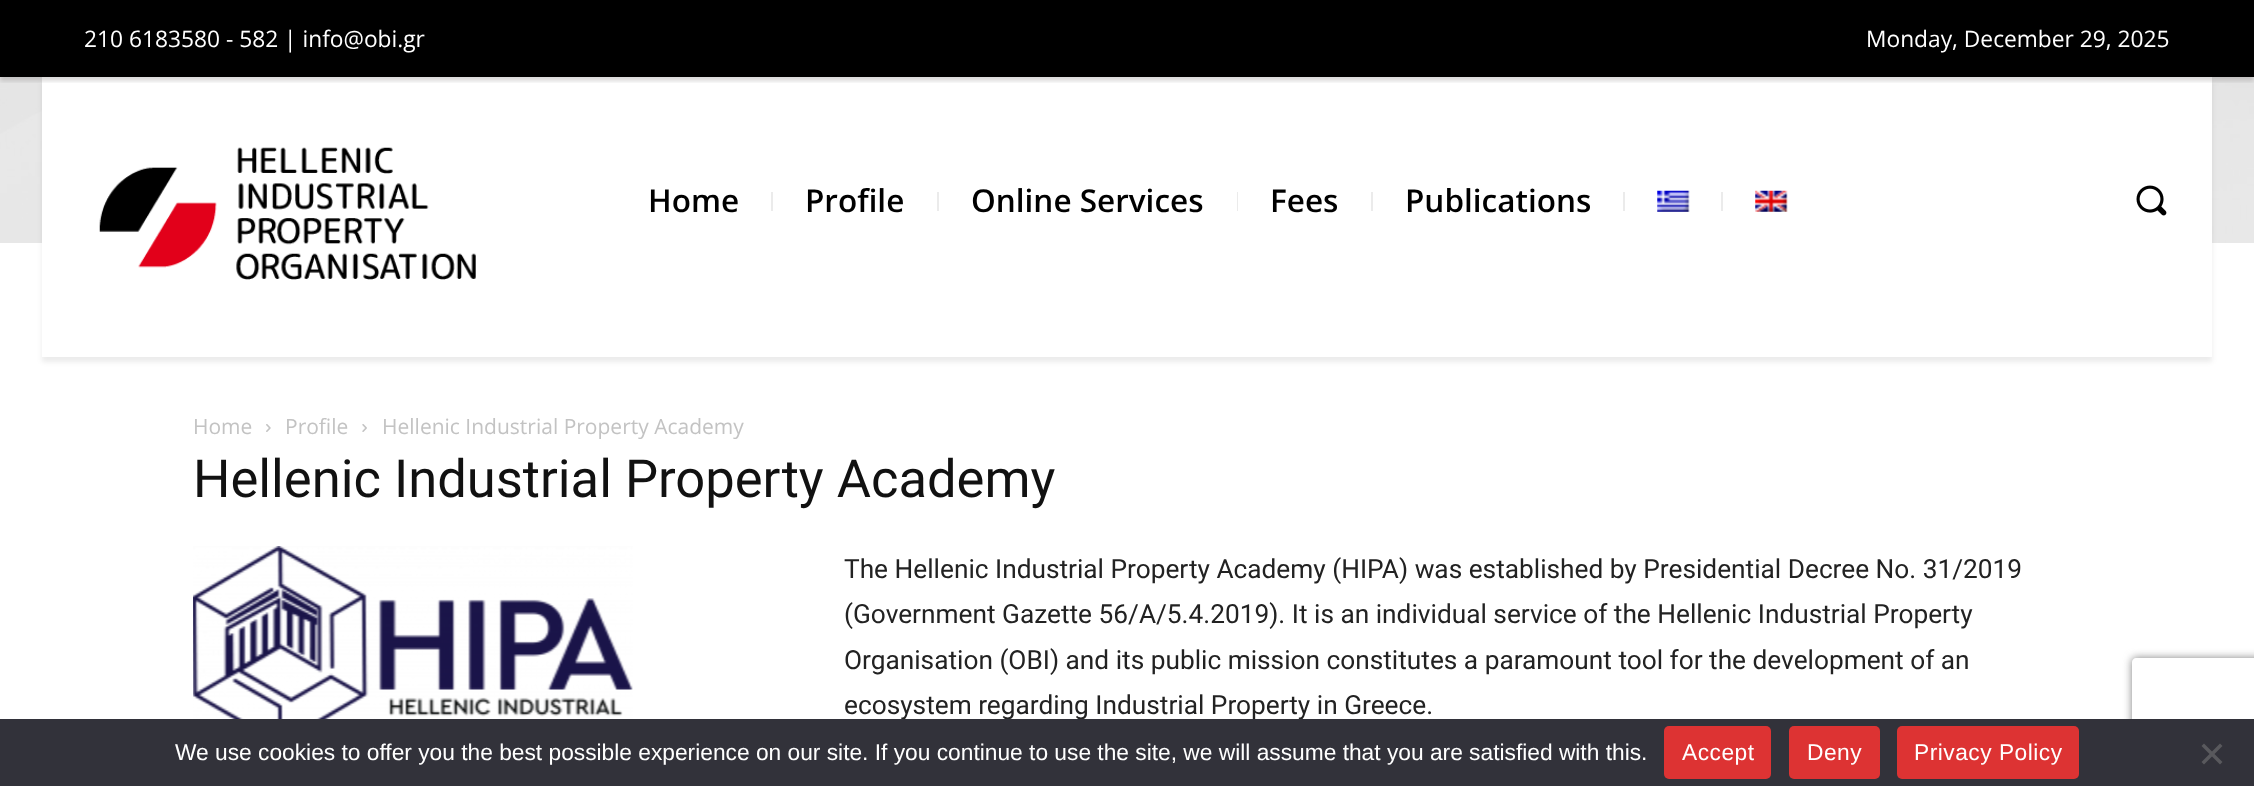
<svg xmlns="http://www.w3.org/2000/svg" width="2254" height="786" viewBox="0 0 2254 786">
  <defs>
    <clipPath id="clip1"><path d="M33 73H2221V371H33ZM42 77H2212V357H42Z" clip-rule="evenodd"/></clipPath>
    <clipPath id="clip2"><path d="M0 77h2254v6H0z"/></clipPath>
    <clipPath id="clip3"><path d="M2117 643H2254V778H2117ZM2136 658H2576C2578 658 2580 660 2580 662V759C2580 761 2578 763 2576 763H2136C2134 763 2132 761 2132 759V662C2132 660 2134 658 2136 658Z" clip-rule="evenodd"/></clipPath>
  </defs>
  <rect width="100%" height="100%" fill="#fff"/>
  <path d="M0 77h2254v166H0z" fill="#f9f9f9"/>
  <image x="0" y="77" width="2254" height="166" href="img/1.png"/>
  <path d="M42 77h2170v166H42z" fill="#fff"/>
  <image x="99" y="147" width="377" height="133" href="img/2.png"/>
  <g clip-path="url(#clip1)">
    <path d="M42 82h2170v280H42z" fill="#00000014" filter="blur(2.5px)"/>
  </g>
  <path d="M0 0h2254v77H0z" fill="#000"/>
  <g clip-path="url(#clip2)">
    <path d="M0 4h2254v77H0z" fill="#0a000026" filter="blur(2px)"/>
  </g>
  <path d="M771 192h2v19H771z" fill="#ebebeb"/>
  <path d="M937 192h2v19H937z" fill="#ebebeb"/>
  <path d="M1237 192h1v19H1237z" fill="#ebebeb"/>
  <path d="M1371 192h2v19H1371z" fill="#ebebeb"/>
  <path d="M1623 192h2v19H1623z" fill="#ebebeb"/>
  <image x="1657" y="190" width="33" height="22" href="img/3.png"/>
  <path d="M1721 192h2v19H1721z" fill="#ebebeb"/>
  <image x="1755" y="190" width="33" height="22" href="img/4.png"/>
  <image x="2136" y="185" width="31" height="31" href="img/5.png"/>
  <image x="266" y="424" width="5" height="8" href="img/6.png"/>
  <image x="362" y="424" width="5" height="8" href="img/7.png"/>
  <image x="193" y="546" width="440" height="173" href="img/8.png"/>
  <g clip-path="url(#clip3)">
    <rect x="2132" y="658" width="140" height="105" rx="4" fill="#808080" filter="blur(4.5px)"/>
  </g>
  <g font-family="Open Sans" font-size="22.75" fill="#fff">
    <text x="84" y="47">210 6183580 - 582 | info@obi.gr</text>
    <text x="1866" y="47">Monday, December 29, 2025</text>
  </g>
  <g font-family="Open Sans" font-size="31.5" font-weight="600" fill="#000">
    <text x="648" y="212">Home</text>
    <text x="805" y="212">Profile</text>
    <text x="971" y="212">Online Services</text>
    <text x="1270" y="212">Fees</text>
    <text x="1405" y="212">Publications</text>
  </g>
  <g font-family="Open Sans" font-size="21" fill="#c3c3c3">
    <text x="193" y="434">Home</text>
    <text x="285" y="434">Profile</text>
    <text x="382" y="434">Hellenic Industrial Property Academy</text>
  </g>
  <text x="193" y="497" font-family="Roboto" font-size="52.5" fill="#111">Hellenic Industrial Property Academy</text>
  <g font-family="Roboto" font-size="26.25" fill="#222">
    <text x="844" y="578">The Hellenic Industrial Property Academy (HIPA) was established by Presidential Decree No. 31/2019</text>
    <text x="844" y="623">(Government Gazette 56/A/5.4.2019). It is an individual service of the Hellenic Industrial Property</text>
    <text x="844" y="669">Organisation (ΟΒΙ) and its public mission constitutes a paramount tool for the development of an</text>
    <text x="844" y="714">ecosystem regarding Industrial Property in Greece.</text>
  </g>
  <path d="M0 719h2254v67H0z" fill="#32323a"/>
  <text x="175" y="760" font-family="Liberation Sans" font-size="22.75" fill="#fff">We use cookies to offer you the best possible experience on our site. If you continue to use the site, we will assume that you are satisfied with this.</text>
  <rect x="1664" y="726" width="107" height="53" rx="5" fill="#d33"/>
  <text x="1682" y="760" font-family="Liberation Sans" font-size="22.75" letter-spacing="0.5" fill="#fff">Accept</text>
  <rect x="1789" y="726" width="91" height="53" rx="5" fill="#d33"/>
  <text x="1807" y="760" font-family="Liberation Sans" font-size="22.75" letter-spacing="0.5" fill="#fff">Deny</text>
  <rect x="1897" y="726" width="182" height="53" rx="5" fill="#d33"/>
  <text x="1914" y="760" font-family="Liberation Sans" font-size="22.75" letter-spacing="0.5" fill="#fff">Privacy Policy</text>
  <path d="M2220 743.5L2222.5 746L2204 764.5L2201.5 762Z" fill="#59595d"/>
  <path d="M2201.5 746L2204 743.5L2222.5 762L2220 764.5Z" fill="#59595d"/>
</svg>
